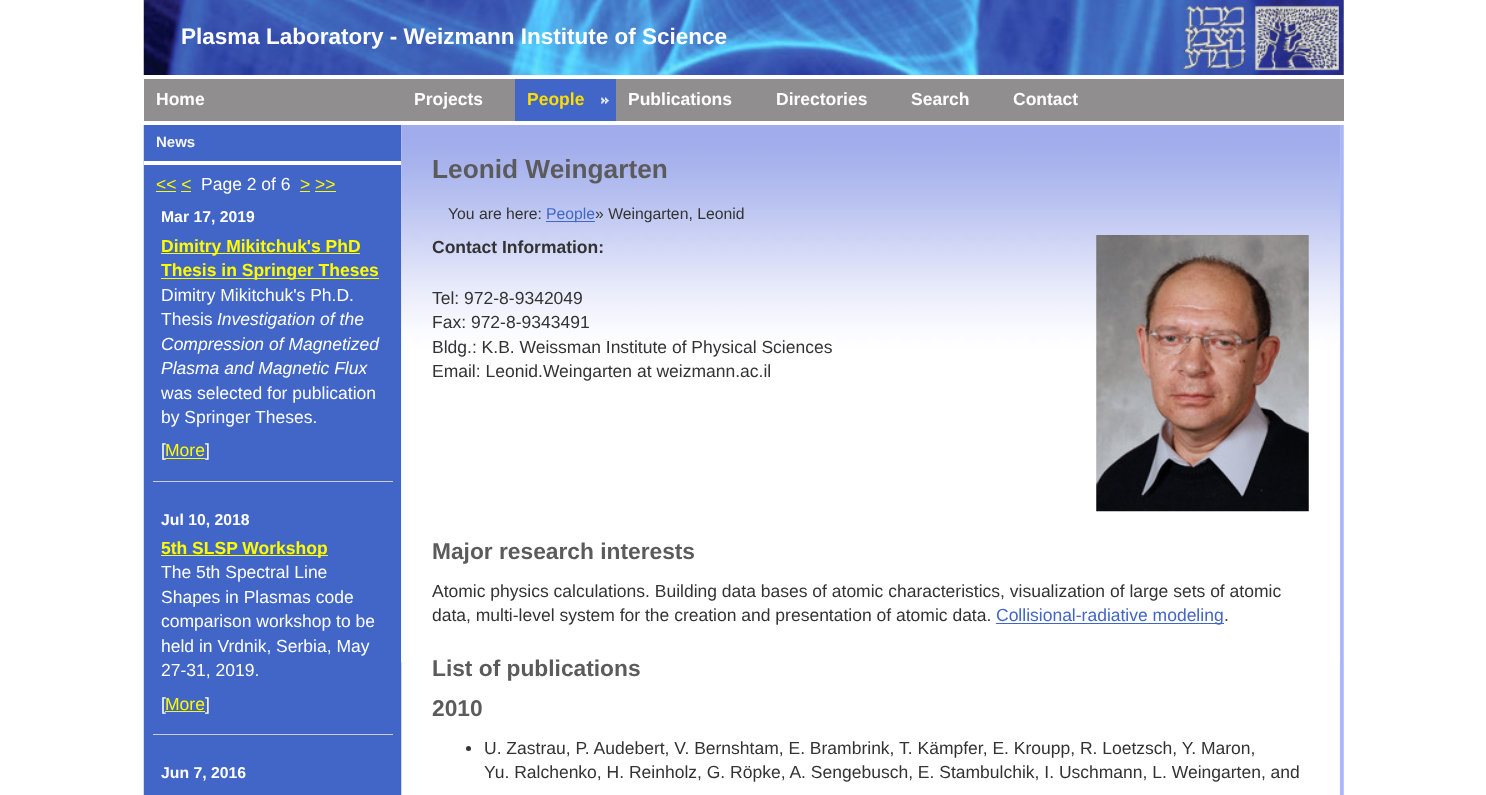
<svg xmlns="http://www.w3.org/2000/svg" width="1486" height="795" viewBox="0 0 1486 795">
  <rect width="100%" height="100%" fill="#fff"/>
  <image x="143" y="0" width="1201" height="75" href="img/1.png"/>
  <path d="M144 79h1200v42H144z" fill="#908e8e"/>
  <path d="M515 79h101v42H515z" fill="#4166c7"/>
  <image x="601" y="97" width="8" height="7" href="img/2.png"/>
  <image x="143" y="125" width="1201" height="670" href="img/3.png"/>
  <path d="M144 125h257v670H144z" fill="#4166c7"/>
  <path d="M144 161h257v4H144z" fill="#fff"/>
  <path d="M156 191h20v1H156z" fill="#fffc00"/>
  <path d="M300 191h10v1H300z" fill="#fffc00"/>
  <path d="M181 191h10v1H181z" fill="#fffc00"/>
  <path d="M315 191h21v1H315z" fill="#fffc00"/>
  <path d="M153 481h240v1H153z" fill="#ccc"/>
  <path d="M161 253h199v1H161z" fill="#fffc00"/>
  <path d="M161 278h218v1H161z" fill="#fffc00"/>
  <path d="M153 734h240v1H153z" fill="#ccc"/>
  <path d="M161 555h167v1H161z" fill="#fffc00"/>
  <image x="401" y="125" width="939" height="538" href="img/4.png"/>
  <path d="M546 221h49v1H546z" fill="#4166c7"/>
  <image x="1096" y="235" width="213" height="277" href="img/5.png"/>
  <path d="M996 623h228v1H996z" fill="#4166c7"/>
  <circle cx="468.5" cy="748.5" r="2.5" fill="#333"/>
  <text x="181" y="44" font-family="Liberation Sans" font-size="22.5" font-weight="bold" fill="#fff">Plasma Laboratory - Weizmann Institute of Science</text>
  <g font-family="Liberation Sans" font-size="17.5" font-weight="bold" fill="#fff">
    <text x="156" y="105">Home</text>
    <text x="414" y="105">Projects</text>
  </g>
  <text x="527" y="105" font-family="Liberation Sans" font-size="17.5" font-weight="bold" fill="#fd0">People</text>
  <g font-family="Liberation Sans" font-size="17.5" font-weight="bold" fill="#fff">
    <text x="628" y="105">Publications</text>
    <text x="776" y="105">Directories</text>
    <text x="911" y="105">Search</text>
    <text x="1013" y="105">Contact</text>
  </g>
  <text x="156" y="147" font-family="Liberation Sans" font-size="15" font-weight="bold" fill="#f5f5f5">News</text>
  <text x="156" y="190" font-family="Liberation Sans" font-size="17.5" fill="#fffc00">&lt;&lt; &lt;</text>
  <text x="201" y="190" font-family="Liberation Sans" font-size="17.5" fill="#fff">Page 2 of 6</text>
  <text x="300" y="190" font-family="Liberation Sans" font-size="17.5" fill="#fffc00">&gt; &gt;&gt;</text>
  <text x="161" y="222" font-family="Liberation Sans" font-size="15.75" font-weight="bold" fill="#fff">Mar 17, 2019</text>
  <g font-family="Liberation Sans" font-size="17.5" font-weight="bold" fill="#fffc00">
    <text x="161" y="252">Dimitry Mikitchuk's PhD</text>
    <text x="161" y="276">Thesis in Springer Theses</text>
  </g>
  <g font-family="Liberation Sans" font-size="17.5" fill="#fff">
    <text x="161" y="301">Dimitry Mikitchuk's Ph.D.</text>
    <text x="161" y="325">Thesis</text>
  </g>
  <g font-family="Liberation Sans" font-size="17.5" font-style="italic" fill="#fff">
    <text x="217" y="325">Investigation of the</text>
    <text x="161" y="350">Compression of Magnetized</text>
    <text x="161" y="374">Plasma and Magnetic Flux</text>
  </g>
  <g font-family="Liberation Sans" font-size="17.5" fill="#fff">
    <text x="161" y="399">was selected for publication</text>
    <text x="161" y="423">by Springer Theses.</text>
    <text x="161" y="456">[</text>
  </g>
  <text x="165" y="456" font-family="Liberation Sans" font-size="17.5" fill="#fffc00">More</text>
  <path d="M165 458h40v1H165z" fill="#fffc00"/>
  <text x="205" y="456" font-family="Liberation Sans" font-size="17.5" fill="#fff">]</text>
  <text x="161" y="525" font-family="Liberation Sans" font-size="15.75" font-weight="bold" fill="#fff">Jul 10, 2018</text>
  <text x="161" y="554" font-family="Liberation Sans" font-size="17.5" font-weight="bold" fill="#fffc00">5th SLSP Workshop</text>
  <g font-family="Liberation Sans" font-size="17.5" fill="#fff">
    <text x="161" y="578">The 5th Spectral Line</text>
    <text x="161" y="603">Shapes in Plasmas code</text>
    <text x="161" y="627">comparison workshop to be</text>
    <text x="161" y="652">held in Vrdnik, Serbia, May</text>
    <text x="161" y="676">27-31, 2019.</text>
    <text x="161" y="710">[</text>
  </g>
  <text x="165" y="710" font-family="Liberation Sans" font-size="17.5" fill="#fffc00">More</text>
  <path d="M165 711h40v1H165z" fill="#fffc00"/>
  <text x="205" y="710" font-family="Liberation Sans" font-size="17.5" fill="#fff">]</text>
  <text x="161" y="778" font-family="Liberation Sans" font-size="15.75" font-weight="bold" fill="#fff">Jun 7, 2016</text>
  <text x="432" y="178" font-family="Liberation Sans" font-size="26.25" font-weight="bold" fill="#5c5b5b">Leonid Weingarten</text>
  <text x="448" y="219" font-family="Liberation Sans" font-size="15.75" fill="#333">You are here:</text>
  <text x="546" y="219" font-family="Liberation Sans" font-size="15.75" fill="#4166c7">People</text>
  <text x="595" y="219" font-family="Liberation Sans" font-size="15.75" fill="#333">» Weingarten, Leonid</text>
  <text x="432" y="253" font-family="Liberation Sans" font-size="17.5" font-weight="bold" fill="#333">Contact Information:</text>
  <g font-family="Liberation Sans" font-size="17.5" fill="#333">
    <text x="432" y="304">Tel: 972-8-9342049</text>
    <text x="432" y="328">Fax: 972-8-9343491</text>
    <text x="432" y="353">Bldg.: K.B. Weissman Institute of Physical Sciences</text>
    <text x="432" y="377">Email: Leonid.Weingarten at weizmann.ac.il</text>
  </g>
  <text x="432" y="559" font-family="Liberation Sans" font-size="22.75" font-weight="bold" fill="#5c5b5b">Major research interests</text>
  <g font-family="Liberation Sans" font-size="17.5" fill="#333">
    <text x="432" y="597">Atomic physics calculations. Building data bases of atomic characteristics, visualization of large sets of atomic</text>
    <text x="432" y="621">data, multi-level system for the creation and presentation of atomic data.</text>
  </g>
  <text x="996" y="621" font-family="Liberation Sans" font-size="17.5" fill="#4166c7">Collisional-radiative modeling</text>
  <text x="1224" y="621" font-family="Liberation Sans" font-size="17.5" fill="#333">.</text>
  <g font-family="Liberation Sans" font-size="22.75" font-weight="bold" fill="#5c5b5b">
    <text x="432" y="676">List of publications</text>
    <text x="432" y="716">2010</text>
  </g>
  <g font-family="Liberation Sans" font-size="17.5" fill="#333">
    <text x="484" y="754">U. Zastrau, P. Audebert, V. Bernshtam, E. Brambrink, T. Kämpfer, E. Kroupp, R. Loetzsch, Y. Maron,</text>
    <text x="484" y="778">Yu. Ralchenko, H. Reinholz, G. Röpke, A. Sengebusch, E. Stambulchik, I. Uschmann, L. Weingarten, and</text>
  </g>
</svg>
